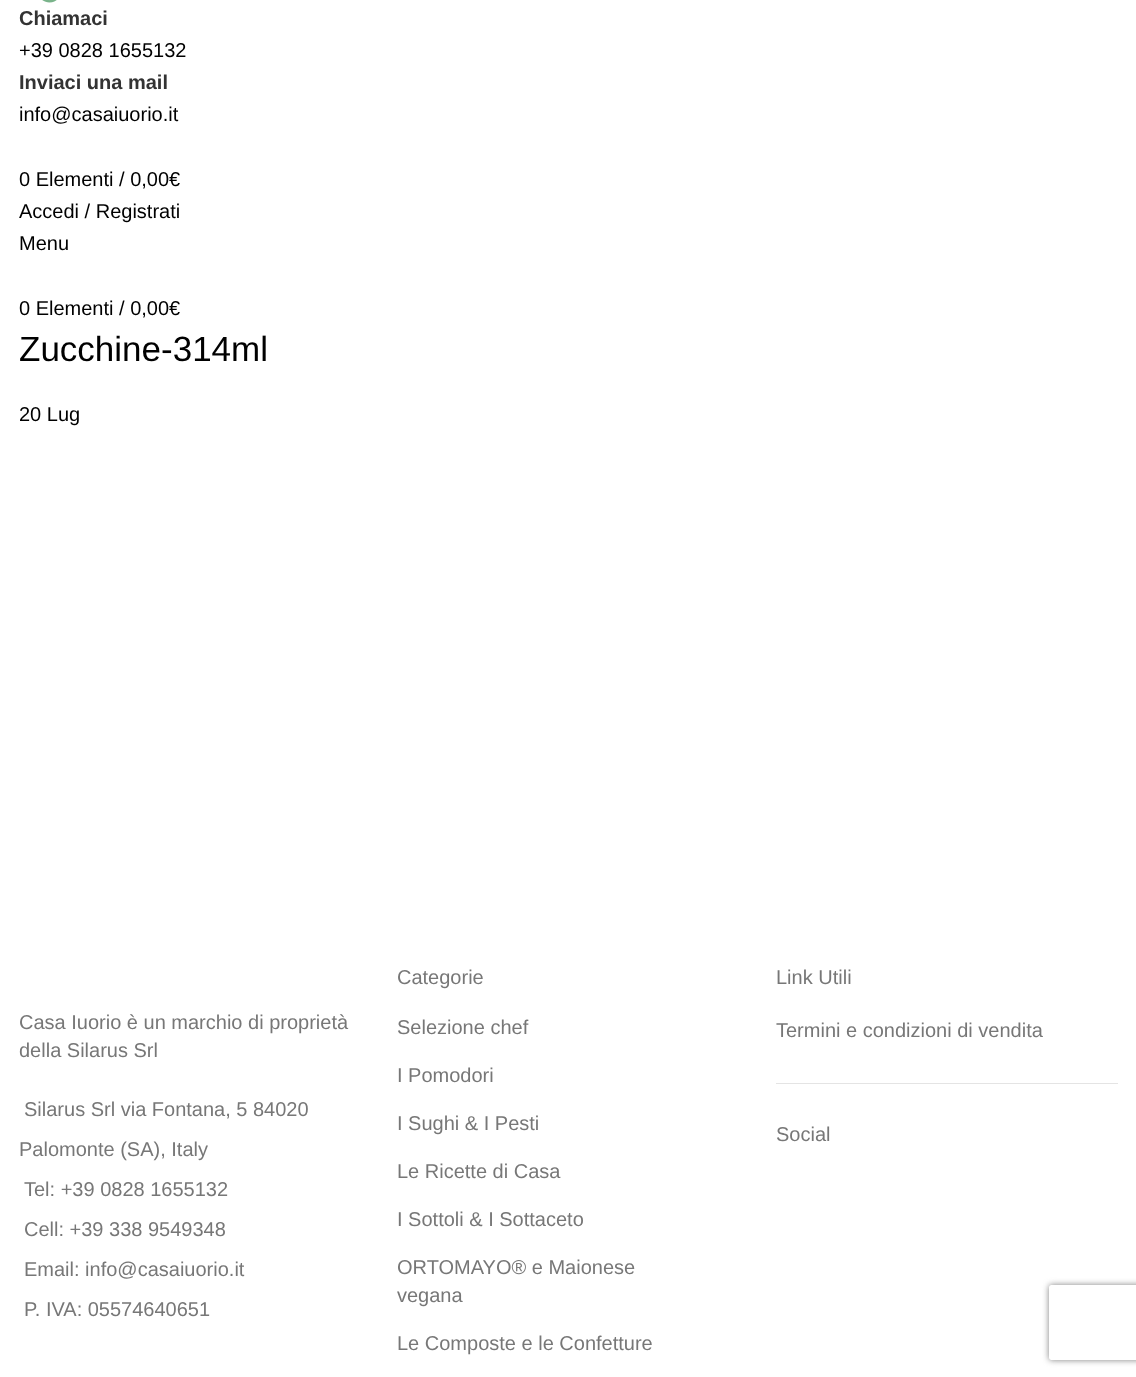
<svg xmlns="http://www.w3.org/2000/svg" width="1136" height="1377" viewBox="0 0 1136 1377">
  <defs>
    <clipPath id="clip1"><path d="M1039 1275H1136V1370H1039ZM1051.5 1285H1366.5C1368 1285 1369 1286 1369 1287.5V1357.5C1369 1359 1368 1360 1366.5 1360H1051.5C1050 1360 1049 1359 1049 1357.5V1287.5C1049 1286 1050 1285 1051.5 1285Z" clip-rule="evenodd"/></clipPath>
  </defs>
  <rect width="100%" height="100%" fill="#fff"/>
  <image x="42" y="0" width="15" height="3" href="img/1.png"/>
  <path d="M776 1083h342v1H776z" fill="#e4e4e4"/>
  <g clip-path="url(#clip1)">
    <rect x="1049" y="1285" width="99" height="75" rx="2.5" fill="#808080" filter="blur(3px)"/>
  </g>
  <text x="19" y="25" font-family="Liberation Sans" font-size="20" font-weight="bold" fill="#333">Chiamaci</text>
  <text x="19" y="57" font-family="Liberation Sans" font-size="20" fill="#000">+39 0828 1655132</text>
  <text x="19" y="89" font-family="Liberation Sans" font-size="20" font-weight="bold" fill="#333">Inviaci una mail</text>
  <g font-family="Liberation Sans" font-size="20" fill="#000">
    <text x="19" y="121">info@casaiuorio.it</text>
    <text x="19" y="186">0 Elementi / 0,00€</text>
    <text x="19" y="218">Accedi / Registrati</text>
    <text x="19" y="250">Menu</text>
    <text x="19" y="315">0 Elementi / 0,00€</text>
  </g>
  <text x="19" y="361" font-family="Liberation Sans" font-size="35" fill="#000">Zucchine-314ml</text>
  <text x="19" y="421" font-family="Liberation Sans" font-size="20" fill="#000">20 Lug</text>
  <g font-family="Liberation Sans" font-size="20" fill="#777">
    <text x="19" y="1029">Casa Iuorio è un marchio di proprietà</text>
    <text x="19" y="1057">della Silarus Srl</text>
    <text x="24" y="1116">Silarus Srl via Fontana, 5 84020</text>
    <text x="19" y="1156">Palomonte (SA), Italy</text>
    <text x="24" y="1196">Tel: +39 0828 1655132</text>
    <text x="24" y="1236">Cell: +39 338 9549348</text>
    <text x="24" y="1276">Email: info@casaiuorio.it</text>
    <text x="24" y="1316">P. IVA: 05574640651</text>
    <text x="397" y="984">Categorie</text>
    <text x="397" y="1034">Selezione chef</text>
    <text x="397" y="1082">I Pomodori</text>
    <text x="397" y="1130">I Sughi &amp; I Pesti</text>
    <text x="397" y="1178">Le Ricette di Casa</text>
    <text x="397" y="1226">I Sottoli &amp; I Sottaceto</text>
    <text x="397" y="1274">ORTOMAYO® e Maionese</text>
    <text x="397" y="1302">vegana</text>
    <text x="397" y="1350">Le Composte e le Confetture</text>
    <text x="776" y="984">Link Utili</text>
    <text x="776" y="1037">Termini e condizioni di vendita</text>
    <text x="776" y="1141">Social</text>
  </g>
</svg>
